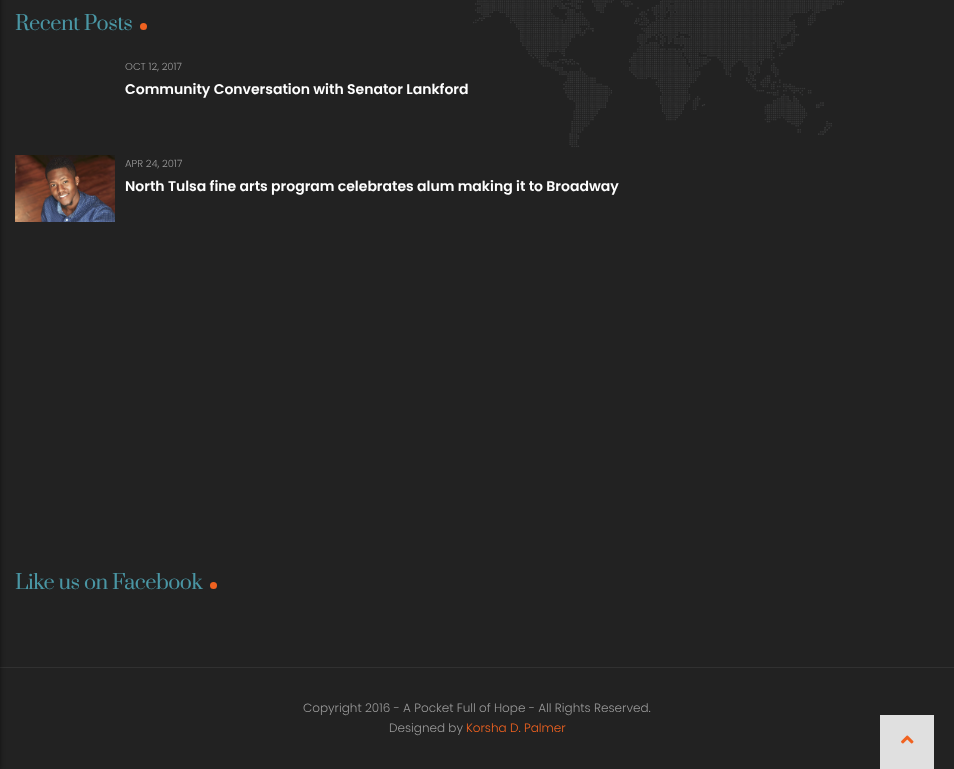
<svg xmlns="http://www.w3.org/2000/svg" width="954" height="769" viewBox="0 0 954 769">
  <rect width="100%" height="100%" fill="#222"/>
  <path d="M0 667h954v1H0z" fill="#313131"/>
  <path d="M-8 -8h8v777H-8z" fill="#00000080" filter="blur(2.5px)"/>
  <image x="473" y="0" width="371" height="147" href="img/1.png"/>
  <circle cx="143.5" cy="26.5" r="3.5" fill="#f06220"/>
  <image x="15" y="155" width="100" height="67" href="img/2.png"/>
  <circle cx="213.5" cy="585.5" r="3.5" fill="#f06220"/>
  <path d="M880 715h54v54H880z" fill="#e0e0e0"/>
  <image x="901" y="735" width="13" height="9" href="img/3.png"/>
  <text x="15" y="30" font-family="Prata" font-size="20" letter-spacing="-0.5" fill="#4a96a4">Recent Posts</text>
  <text x="125" y="70" font-family="Poppins" font-size="10" font-weight="300" fill="#999">OCT 12, 2017</text>
  <text x="125" y="94" font-family="Poppins" font-size="14" font-weight="600" fill="#fff">Community Conversation with Senator Lankford</text>
  <text x="125" y="167" font-family="Poppins" font-size="10" font-weight="300" fill="#999">APR 24, 2017</text>
  <text x="125" y="191" font-family="Poppins" font-size="14" font-weight="600" fill="#fff">North Tulsa fine arts program celebrates alum making it to Broadway</text>
  <text x="15" y="589" font-family="Prata" font-size="20" letter-spacing="-0.5" fill="#4a96a4">Like us on Facebook</text>
  <g font-family="Poppins" font-size="12" font-weight="300" fill="#999">
    <text x="303" y="712">Copyright 2016 - A Pocket Full of Hope - All Rights Reserved.</text>
    <text x="389" y="732">Designed by</text>
  </g>
  <text x="466" y="732" font-family="Poppins" font-size="12" font-weight="300" fill="#f06220">Korsha D. Palmer</text>
</svg>
